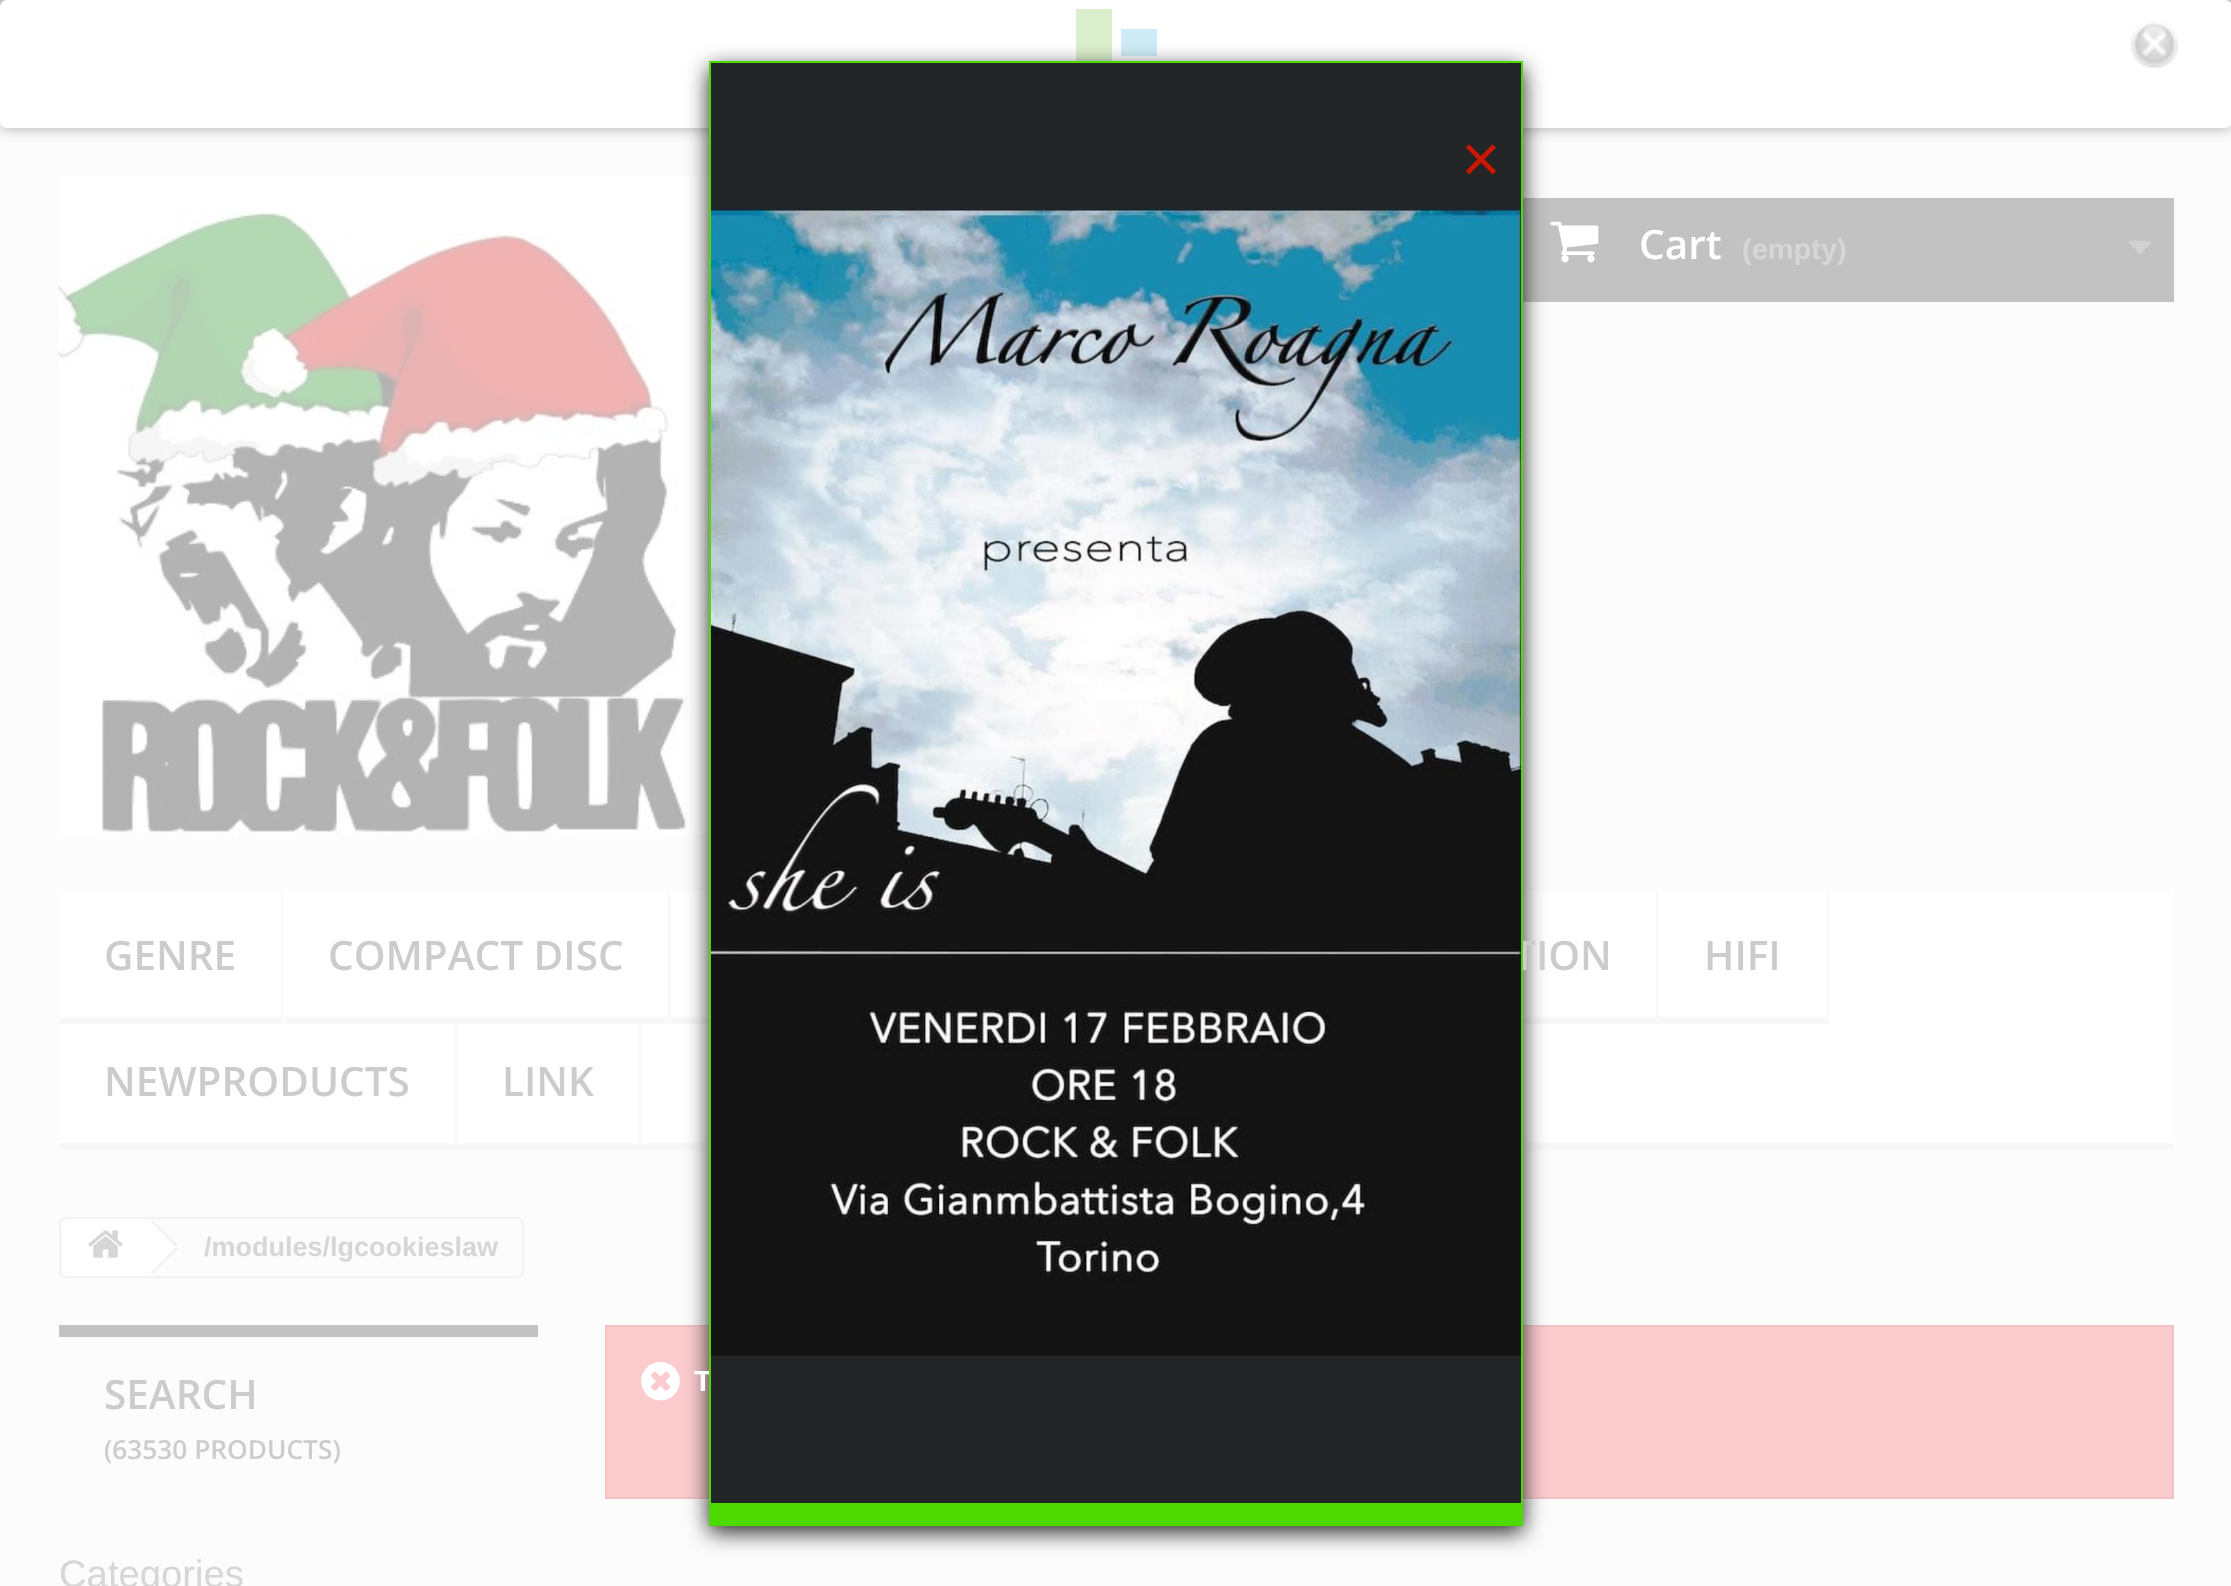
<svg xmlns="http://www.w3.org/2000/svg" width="2231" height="1586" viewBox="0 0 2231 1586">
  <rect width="100%" height="100%" fill="#fcfcfc"/>
  <path d="M0 0h2231v7H0z" fill="#c2c2c2"/>
  <rect y="2" width="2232" height="129" rx="7" fill="#c4c4c4" filter="blur(5.5px)"/>
  <rect x="1" y="1" width="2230" height="126" rx="6" fill="#fff" stroke="#fff" stroke-width="2"/>
  <path d="M1076 9h36v52H1076z" fill="#dcefcc"/>
  <path d="M1121 29h36v27H1121z" fill="#ceecf5"/>
  <image x="58" y="175" width="651" height="660" href="img/3.png"/>
  <path d="M1523 198h651v104H1523z" fill="#c2c2c2"/>
  <image x="1550" y="221" width="49" height="42" href="img/4.png"/>
  <path d="M59 891h2115v252H59z" fill="#fff"/>
  <path d="M59 1143h2115v7H59z" fill="#f8f8f8"/>
  <path d="M1523 1017h133v7H1523z" fill="#f8f8f8"/>
  <path d="M671 1017h38v7H671z" fill="#f8f8f8"/>
  <path d="M606 1326h1567v172H606z" fill="#fbcbce" stroke="#f2c2c5" stroke-width="2"/>
  <image x="641" y="1361" width="39" height="40" href="img/7.png"/>
  <path d="M709 68h814v1464H709z" fill="#222" filter="blur(11px)"/>
  <image x="2130" y="20" width="48" height="48" href="img/2.png"/>
  <image x="2128" y="240" width="24" height="14" href="img/5.png"/>
  <path d="M281 891h2v133H281z" fill="#f8f8f8"/>
  <path d="M59 1017h222v7H59z" fill="#f8f8f8"/>
  <path d="M668 891h2v133H668z" fill="#f8f8f8"/>
  <path d="M284 1017h384v7H284z" fill="#f8f8f8"/>
  <path d="M1656 891h2v133H1656z" fill="#f8f8f8"/>
  <path d="M1827 891h2v133H1827z" fill="#f8f8f8"/>
  <path d="M1658 1017h169v7H1658z" fill="#f8f8f8"/>
  <path d="M455 1017h2v133H455z" fill="#f8f8f8"/>
  <path d="M639 1017h2v133H639z" fill="#f8f8f8"/>
  <rect x="60" y="1218" width="463" height="59" rx="6" fill="none" stroke="#f3f2f2" stroke-width="2"/>
  <path d="M70 1220H149V1276H70C66 1276 63 1273 63 1269V1227C63 1223 66 1220 70 1220Z" fill="#fff"/>
  <image x="88" y="1230" width="35" height="28" href="img/6.png"/>
  <path d="M154 1222L176 1244C178 1246 178 1249 176 1250L154 1273C152 1274 149 1274 148 1273L125 1250C124 1249 124 1246 125 1244L148 1222C149 1220 152 1220 154 1222Z" fill="#fff"/>
  <path d="M152.5 1220L178 1245.5L176 1247L151 1222ZM176 1247L178 1249L152.5 1274.5L151 1272.5Z" fill="#f3f2f2"/>
  <path d="M59 1325h479v12H59z" fill="#c2c2c2"/>
  <text x="1639" y="259" font-family="Open Sans" font-size="40.5" font-weight="600" fill="#fff">Cart</text>
  <text x="1742" y="259" font-family="Liberation Sans" font-size="29" font-weight="bold" fill="#d6d6d6">(empty)</text>
  <g font-family="Open Sans" font-size="40.5" font-weight="600" fill="#ccc">
    <text x="104" y="970">GENRE</text>
    <text x="328" y="970">COMPACT DISC</text>
    <text x="1513" y="970">TION</text>
    <text x="1704" y="970">HIFI</text>
    <text x="104" y="1096">NEWPRODUCTS</text>
    <text x="502" y="1096">LINK</text>
  </g>
  <text x="204" y="1256" font-family="Liberation Sans" font-size="27" font-weight="bold" fill="#d6d6d6">/modules/lgcookieslaw</text>
  <text x="104" y="1409" font-family="Open Sans" font-size="40.5" font-weight="600" fill="#ccc">SEARCH</text>
  <text x="104" y="1459" font-family="Open Sans" font-size="26.25" font-weight="600" fill="#ccc">(63530 PRODUCTS)</text>
  <text x="59" y="1587" font-family="Liberation Sans" font-size="38.25" fill="#d6d6d6">Categories</text>
  <text x="694" y="1391" font-family="Liberation Sans" font-size="29" font-weight="bold" fill="#fff">T</text>
  <path d="M709 61h814v1465H709z" fill="#4ed900"/>
  <image x="711" y="63" width="810" height="1440" href="img/1.png"/>
  <text x="1461" y="182" font-family="Liberation Sans" font-size="68" fill="#ca1800">×</text>
</svg>
